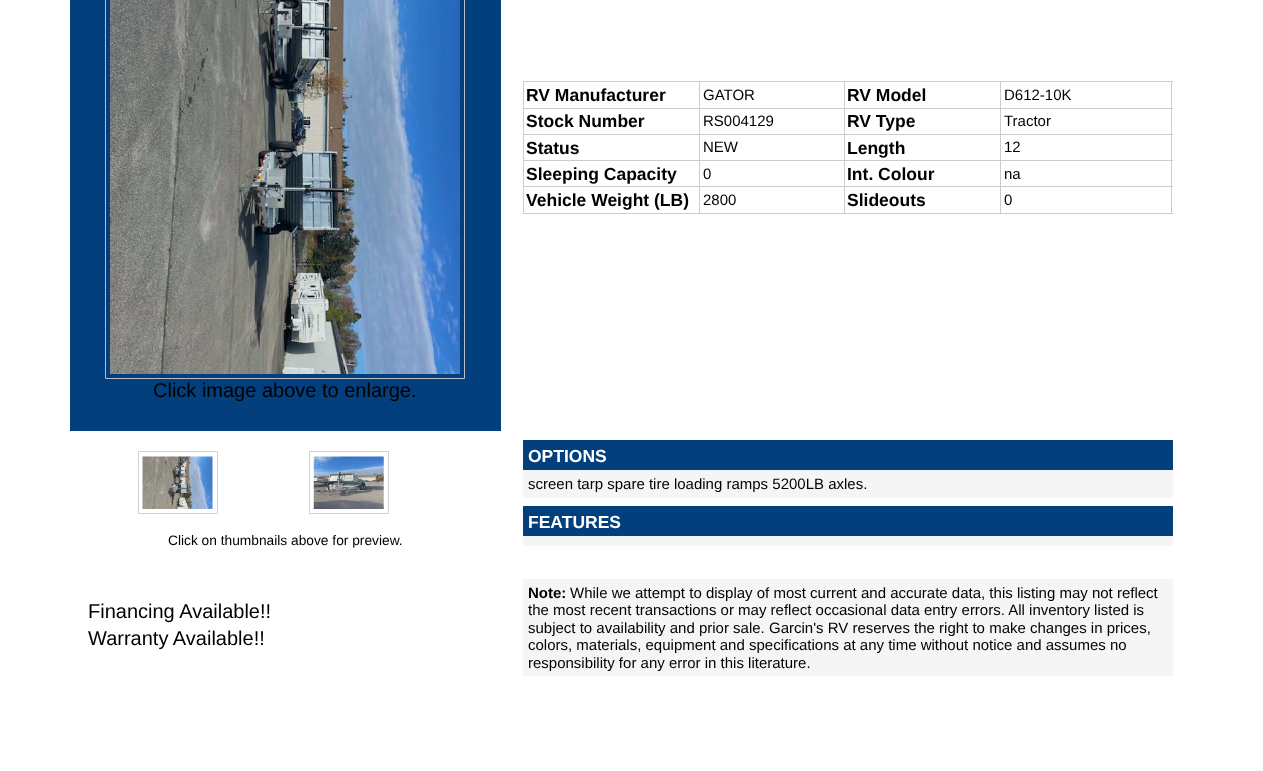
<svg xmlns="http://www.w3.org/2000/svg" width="1263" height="771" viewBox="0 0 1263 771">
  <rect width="100%" height="100%" fill="#fff"/>
  <path d="M523 81h650v1H523z" fill="#ccc"/>
  <path d="M1171 81h1v133H1171z" fill="#ccc"/>
  <path d="M523 213h650v1H523z" fill="#ccc"/>
  <path d="M523 81h1v133H523z" fill="#ccc"/>
  <path d="M1000 108h173v1H1000z" fill="#ccc"/>
  <path d="M1000 134h173v1H1000z" fill="#ccc"/>
  <path d="M1000 160h173v1H1000z" fill="#ccc"/>
  <path d="M1000 186h173v1H1000z" fill="#ccc"/>
  <path d="M1000 186h1v28H1000z" fill="#ccc"/>
  <path d="M844 186h157v1H844z" fill="#ccc"/>
  <path d="M1000 160h1v28H1000z" fill="#ccc"/>
  <path d="M844 160h157v1H844z" fill="#ccc"/>
  <path d="M1000 134h1v27H1000z" fill="#ccc"/>
  <path d="M844 134h157v1H844z" fill="#ccc"/>
  <path d="M1000 108h1v27H1000z" fill="#ccc"/>
  <path d="M844 108h157v1H844z" fill="#ccc"/>
  <path d="M844 186h1v28H844z" fill="#ccc"/>
  <path d="M699 186h146v1H699z" fill="#ccc"/>
  <path d="M844 160h1v28H844z" fill="#ccc"/>
  <path d="M699 160h146v1H699z" fill="#ccc"/>
  <path d="M844 134h1v27H844z" fill="#ccc"/>
  <path d="M699 134h146v1H699z" fill="#ccc"/>
  <path d="M844 108h1v27H844z" fill="#ccc"/>
  <path d="M699 108h146v1H699z" fill="#ccc"/>
  <path d="M699 186h1v28H699z" fill="#ccc"/>
  <path d="M523 186h177v1H523z" fill="#ccc"/>
  <path d="M699 160h1v28H699z" fill="#ccc"/>
  <path d="M523 160h177v1H523z" fill="#ccc"/>
  <path d="M699 134h1v27H699z" fill="#ccc"/>
  <path d="M523 134h177v1H523z" fill="#ccc"/>
  <path d="M699 108h1v27H699z" fill="#ccc"/>
  <path d="M523 108h177v1H523z" fill="#ccc"/>
  <path d="M699 81h1v28H699z" fill="#ccc"/>
  <path d="M844 81h1v28H844z" fill="#ccc"/>
  <path d="M1000 81h1v28H1000z" fill="#ccc"/>
  <path d="M70 0h431v431H70z" fill="#023f7c"/>
  <path d="M105.5 -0.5h359v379H105.5z" fill="none" stroke="#b8bec4"/>
  <image x="110" y="0" width="350" height="374" href="img/1.png"/>
  <path d="M523 440h650v30H523z" fill="#023f7c"/>
  <path d="M523 470h650v28H523z" fill="#f5f5f5"/>
  <path d="M523 506h650v30H523z" fill="#023f7c"/>
  <path d="M523 536h650v10H523z" fill="#f5f5f5"/>
  <path d="M138.5 451.5h79v62H138.5z" fill="none" stroke="#d1d1d1"/>
  <image x="142" y="456" width="71" height="53" href="img/2.png"/>
  <path d="M309.5 451.5h79v62H309.5z" fill="none" stroke="#d1d1d1"/>
  <image x="313" y="456" width="71" height="53" href="img/3.png"/>
  <path d="M523 579h650v97H523z" fill="#f5f5f5"/>
  <text x="526" y="101" font-family="Liberation Sans" font-size="17.5" font-weight="bold" fill="#000">RV Manufacturer</text>
  <text x="703" y="100" font-family="Liberation Sans" font-size="15" fill="#000">GATOR</text>
  <text x="847" y="101" font-family="Liberation Sans" font-size="17.5" font-weight="bold" fill="#000">RV Model</text>
  <text x="1004" y="100" font-family="Liberation Sans" font-size="15" fill="#000">D612-10K</text>
  <text x="526" y="127" font-family="Liberation Sans" font-size="17.5" font-weight="bold" fill="#000">Stock Number</text>
  <text x="703" y="126" font-family="Liberation Sans" font-size="15" fill="#000">RS004129</text>
  <text x="847" y="127" font-family="Liberation Sans" font-size="17.5" font-weight="bold" fill="#000">RV Type</text>
  <text x="1004" y="126" font-family="Liberation Sans" font-size="15" fill="#000">Tractor</text>
  <text x="526" y="154" font-family="Liberation Sans" font-size="17.5" font-weight="bold" fill="#000">Status</text>
  <text x="703" y="152" font-family="Liberation Sans" font-size="15" fill="#000">NEW</text>
  <text x="847" y="154" font-family="Liberation Sans" font-size="17.5" font-weight="bold" fill="#000">Length</text>
  <text x="1004" y="152" font-family="Liberation Sans" font-size="15" fill="#000">12</text>
  <text x="526" y="180" font-family="Liberation Sans" font-size="17.5" font-weight="bold" fill="#000">Sleeping Capacity</text>
  <text x="703" y="179" font-family="Liberation Sans" font-size="15" fill="#000">0</text>
  <text x="847" y="180" font-family="Liberation Sans" font-size="17.5" font-weight="bold" fill="#000">Int. Colour</text>
  <text x="1004" y="179" font-family="Liberation Sans" font-size="15" fill="#000">na</text>
  <text x="526" y="206" font-family="Liberation Sans" font-size="17.5" font-weight="bold" fill="#000">Vehicle Weight (LB)</text>
  <text x="703" y="205" font-family="Liberation Sans" font-size="15" fill="#000">2800</text>
  <text x="847" y="206" font-family="Liberation Sans" font-size="17.5" font-weight="bold" fill="#000">Slideouts</text>
  <text x="1004" y="205" font-family="Liberation Sans" font-size="15" fill="#000">0</text>
  <text x="153" y="397" font-family="Liberation Sans" font-size="20" fill="#000">Click image above to enlarge.</text>
  <text x="528" y="462" font-family="Liberation Sans" font-size="17.5" font-weight="bold" fill="#fff">OPTIONS</text>
  <text x="528" y="489" font-family="Liberation Sans" font-size="15" fill="#000">screen tarp spare tire loading ramps 5200LB axles.</text>
  <text x="528" y="528" font-family="Liberation Sans" font-size="17.5" font-weight="bold" fill="#fff">FEATURES</text>
  <text x="168" y="545" font-family="Liberation Sans" font-size="13.75" fill="#000">Click on thumbnails above for preview.</text>
  <g font-family="Liberation Sans" font-size="20" fill="#000">
    <text x="88" y="618">Financing Available!!</text>
    <text x="88" y="645">Warranty Available!!</text>
  </g>
  <text x="528" y="598" font-family="Liberation Sans" font-size="15" font-weight="bold" fill="#000">Note:</text>
  <g font-family="Liberation Sans" font-size="15" fill="#000">
    <text x="570" y="598">While we attempt to display of most current and accurate data, this listing may not reflect</text>
    <text x="528" y="615">the most recent transactions or may reflect occasional data entry errors. All inventory listed is</text>
    <text x="528" y="633">subject to availability and prior sale. Garcin's RV reserves the right to make changes in prices,</text>
    <text x="528" y="650">colors, materials, equipment and specifications at any time without notice and assumes no</text>
    <text x="528" y="668">responsibility for any error in this literature.</text>
  </g>
</svg>
